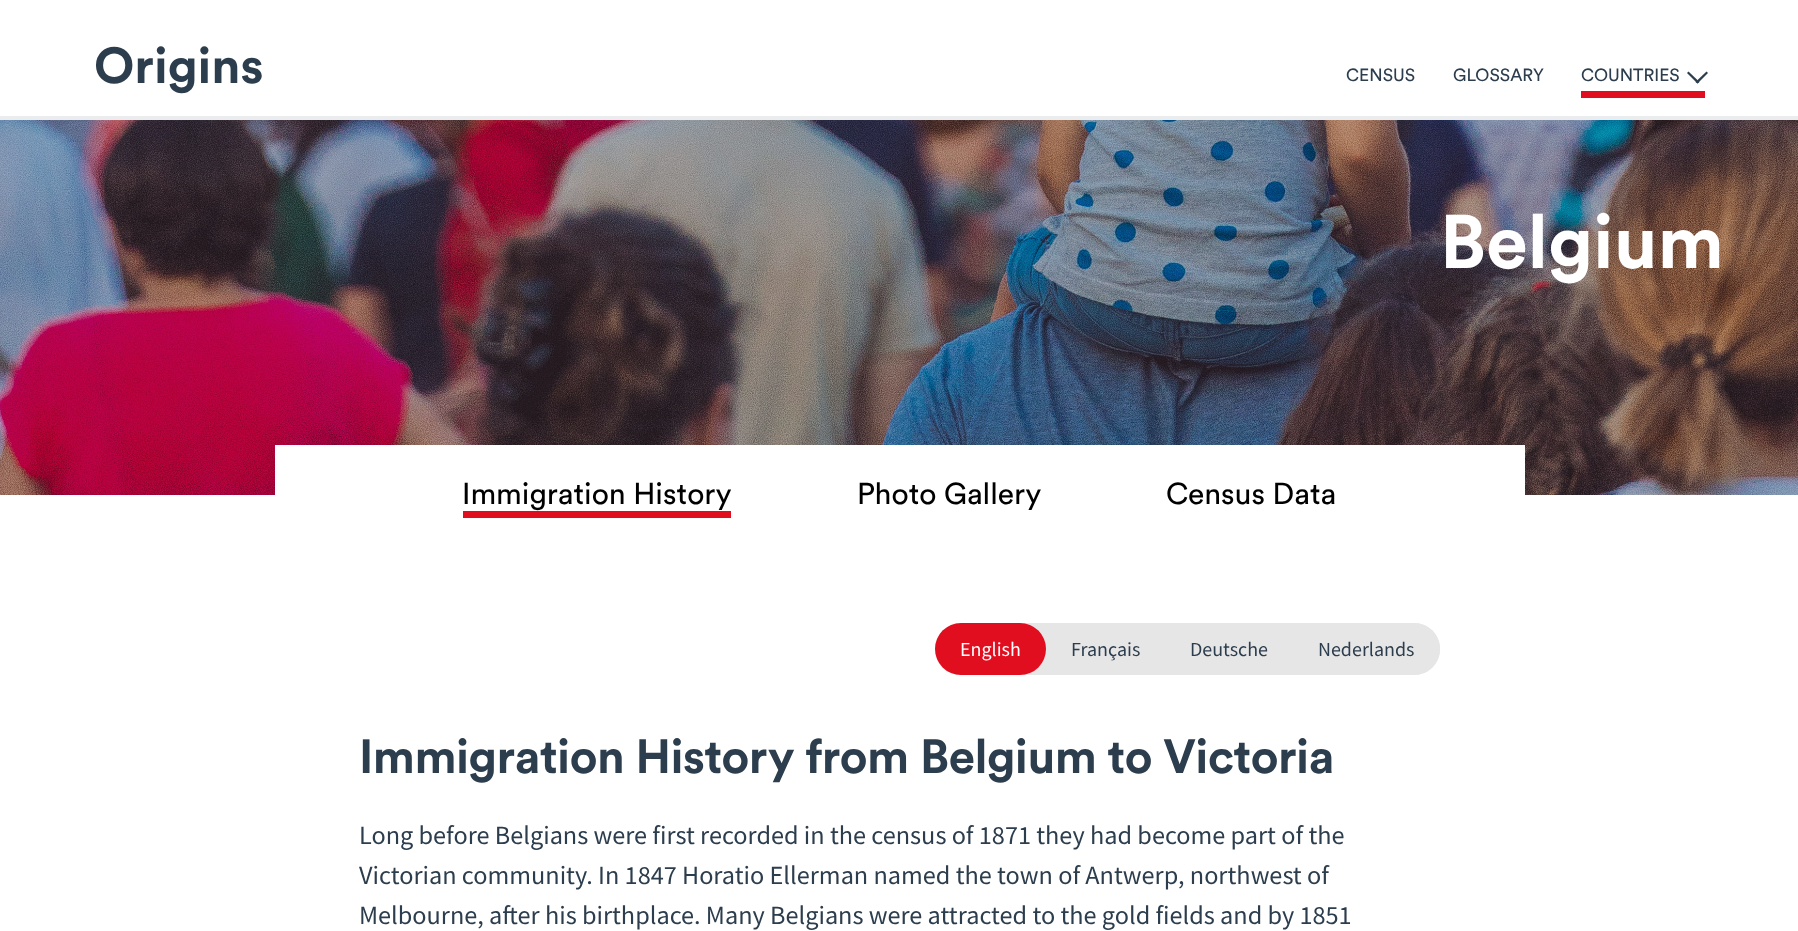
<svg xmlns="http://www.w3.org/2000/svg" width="1798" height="931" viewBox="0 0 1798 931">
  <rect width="100%" height="100%" fill="#fff"/>
  <path d="M0 116h1798v4H0z" fill="#eaeced"/>
  <path d="M1581 91h124v7H1581z" fill="#e10e20"/>
  <path d="M1706.5 71.5L1708 73L1697.5 83.5L1695.5 82Z" fill="#2c3d4d"/>
  <path d="M1688.5 71.5L1699.5 82L1697.5 83.5L1687 73Z" fill="#2c3d4d"/>
  <image x="0" y="120" width="1798" height="375" href="img/1.png"/>
  <path d="M275 445h1250v50H275z" fill="#fff"/>
  <path d="M463 511h268v7H463z" fill="#e10e20"/>
  <path d="M961 623H1046V675H961C946.5 675 935 663.5 935 649C935 634.5 946.5 623 961 623Z" fill="#e6e6e6"/>
  <rect x="935" y="623" width="111" height="52" rx="26" fill="#e10e20"/>
  <path d="M1046 623h247v52H1046z" fill="#e6e6e6"/>
  <path d="M1293 623H1414C1428.5 623 1440 634.5 1440 649C1440 663.5 1428.5 675 1414 675H1293Z" fill="#e6e6e6"/>
  <rect x="1293" y="623" width="147" height="52" rx="26" fill="#e6e6e6"/>
  <text x="94" y="83" font-family="Circular" font-size="50" font-weight="bold" fill="#2c3d4d">Origins</text>
  <g font-family="Circular" font-size="17.5" fill="#2c3d4d">
    <text x="1346" y="81">CENSUS</text>
    <text x="1453" y="81">GLOSSARY</text>
    <text x="1581" y="81">COUNTRIES</text>
  </g>
  <text x="1440" y="268" font-family="Circular" font-size="75" font-weight="bold" fill="#fff">Belgium</text>
  <g font-family="Circular" font-size="30" fill="#000">
    <text x="462" y="504">Immigration History</text>
    <text x="857" y="504">Photo Gallery</text>
    <text x="1166" y="504">Census Data</text>
  </g>
  <text x="960" y="656" font-family="Source Sans Pro" font-size="20" fill="#fff">English</text>
  <g font-family="Source Sans Pro" font-size="20" fill="#2c3d4d">
    <text x="1071" y="656">Français</text>
    <text x="1190" y="656">Deutsche</text>
    <text x="1318" y="656">Nederlands</text>
  </g>
  <text x="359" y="773" font-family="Circular" font-size="47.5" font-weight="bold" letter-spacing="-0.5" fill="#2c3d4d">Immigration History from Belgium to Victoria</text>
  <g font-family="Source Sans Pro" font-size="26.25" fill="#2c3d4d">
    <text x="359" y="844">Long before Belgians were first recorded in the census of 1871 they had become part of the</text>
    <text x="359" y="884">Victorian community. In 1847 Horatio Ellerman named the town of Antwerp, northwest of</text>
    <text x="359" y="924">Melbourne, after his birthplace. Many Belgians were attracted to the gold fields and by 1851</text>
  </g>
</svg>
